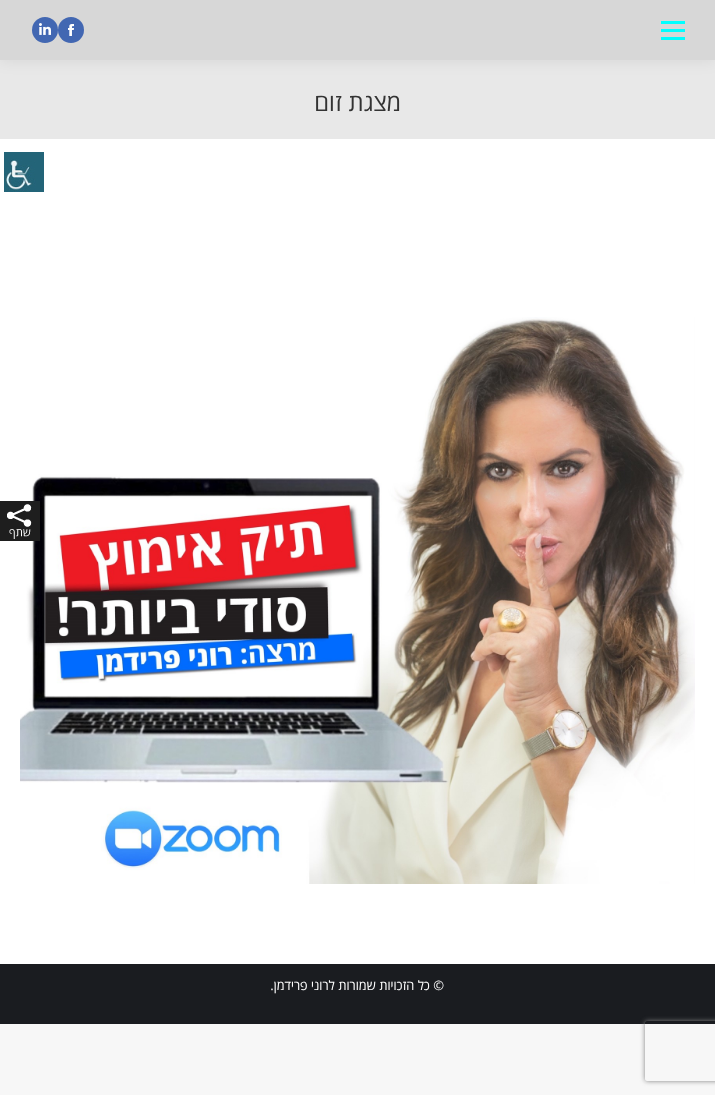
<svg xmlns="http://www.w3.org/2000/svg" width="715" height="1095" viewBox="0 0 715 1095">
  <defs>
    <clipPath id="clip1"><path d="M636 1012H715V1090H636ZM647 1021H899C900 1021 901 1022 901 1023V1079C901 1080 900 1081 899 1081H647C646 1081 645 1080 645 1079V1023C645 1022 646 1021 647 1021Z" clip-rule="evenodd"/></clipPath>
  </defs>
  <rect width="100%" height="100%" fill="#f7f7f7"/>
  <path d="M0 139h715v825H0z" fill="#fff"/>
  <path d="M0 60h715v79H0z" fill="#e8e8e8"/>
  <path d="M-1 -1h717v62H-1z" fill="#00000012" filter="blur(7.5px)"/>
  <path d="M0 0h715v60H0z" fill="#d7d7d7"/>
  <path d="M661 29h24v3H661z" fill="#0ff"/>
  <path d="M661 21h24v3H661z" fill="#0ff"/>
  <path d="M661 37h24v3H661z" fill="#0ff"/>
  <circle cx="71" cy="30" r="13" fill="#4267b2"/>
  <image x="68" y="24" width="6" height="12" href="img/1.png"/>
  <circle cx="45" cy="30" r="13" fill="#4267b2"/>
  <image x="39" y="23" width="12" height="12" href="img/2.png"/>
  <image x="20" y="317" width="675" height="567" href="img/3.png"/>
  <path d="M0 964h715v60H0z" fill="#1a1c20"/>
  <image x="4" y="152" width="40" height="40" href="img/4.png"/>
  <image x="0" y="501" width="40" height="40" href="img/5.png"/>
  <g clip-path="url(#clip1)">
    <rect x="645" y="1021" width="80" height="60" rx="2" fill="#808080" filter="blur(2.5px)"/>
  </g>
  <text x="401" y="111" font-family="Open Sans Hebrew" font-size="24" direction="rtl" fill="#333">מצגת זום</text>
  <text x="444" y="990" font-family="Open Sans Hebrew" font-size="13" direction="rtl" fill="#fff">© כל הזכויות שמורות לרוני פרידמן.</text>
</svg>
